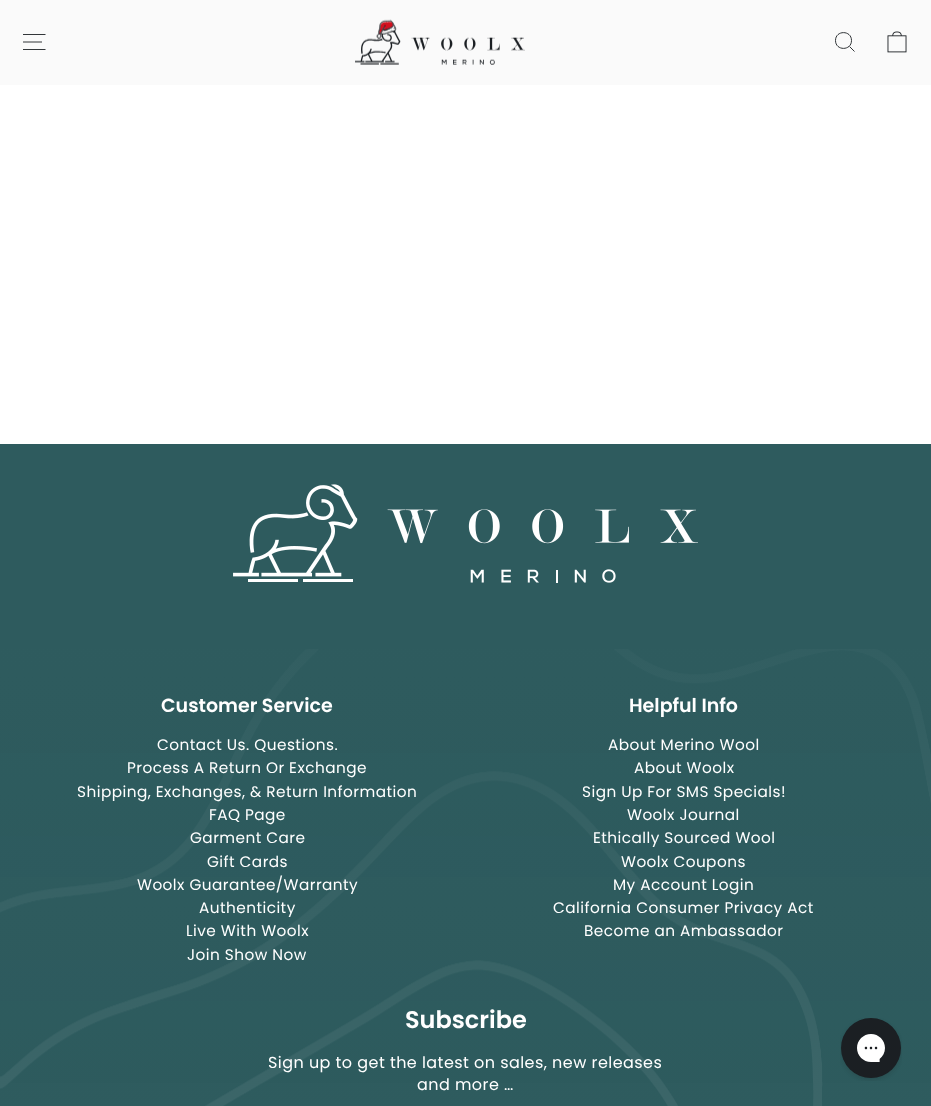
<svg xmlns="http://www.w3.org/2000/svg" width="931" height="1106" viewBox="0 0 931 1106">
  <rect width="100%" height="100%" fill="#fff"/>
  <path d="M0 0h931v85H0z" fill="#fafafa"/>
  <path d="M23 34.5H45.5M23 42H42M23 49.5H45.5" fill="none" stroke="#1b1f23" stroke-width="0.9"/>
  <image x="355" y="19" width="170" height="46" href="img/1.png"/>
  <path d="M851.5 40.5C851.5 51 835.5 51 835.5 40.5C835.5 30 851.5 30 851.5 40.5ZM854.5 51.5L849.5 46.5" fill="none" stroke="#1b1f23" stroke-width="0.9"/>
  <image x="887" y="31" width="20" height="22" href="img/2.png"/>
  <path d="M0 444h931v662H0z" fill="#2e5b5e"/>
  <image x="0" y="649" width="931" height="457" href="img/3.png"/>
  <image x="233" y="484" width="465" height="99" href="img/4.png"/>
  <image x="840" y="1018" width="62" height="63" href="img/5.png"/>
  <text x="161" y="712" font-family="Poppins" font-size="19" font-weight="600" fill="#fff">Customer Service</text>
  <g font-family="Poppins" font-size="15.3" letter-spacing="0.45" fill="#fff">
    <text x="157" y="750">Contact Us. Questions.</text>
    <text x="127" y="773">Process A Return Or Exchange</text>
    <text x="77" y="797">Shipping, Exchanges, &amp; Return Information</text>
    <text x="209" y="820">FAQ Page</text>
    <text x="190" y="843">Garment Care</text>
    <text x="207" y="867">Gift Cards</text>
    <text x="137" y="890">Woolx Guarantee/Warranty</text>
    <text x="199" y="913">Authenticity</text>
    <text x="186" y="936">Live With Woolx</text>
    <text x="187" y="960">Join Show Now</text>
  </g>
  <text x="629" y="712" font-family="Poppins" font-size="19" font-weight="600" fill="#fff">Helpful Info</text>
  <g font-family="Poppins" font-size="15.3" letter-spacing="0.45" fill="#fff">
    <text x="608" y="750">About Merino Wool</text>
    <text x="634" y="773">About Woolx</text>
    <text x="582" y="797">Sign Up For SMS Specials!</text>
    <text x="627" y="820">Woolx Journal</text>
    <text x="593" y="843">Ethically Sourced Wool</text>
    <text x="621" y="867">Woolx Coupons</text>
    <text x="613" y="890">My Account Login</text>
    <text x="553" y="913">California Consumer Privacy Act</text>
    <text x="584" y="936">Become an Ambassador</text>
  </g>
  <text x="405" y="1028" font-family="Poppins" font-size="24" font-weight="600" fill="#fff">Subscribe</text>
  <g font-family="Poppins" font-size="16" letter-spacing="0.45" fill="#fff">
    <text x="268" y="1068">Sign up to get the latest on sales, new releases</text>
    <text x="417" y="1090">and more …</text>
  </g>
</svg>
